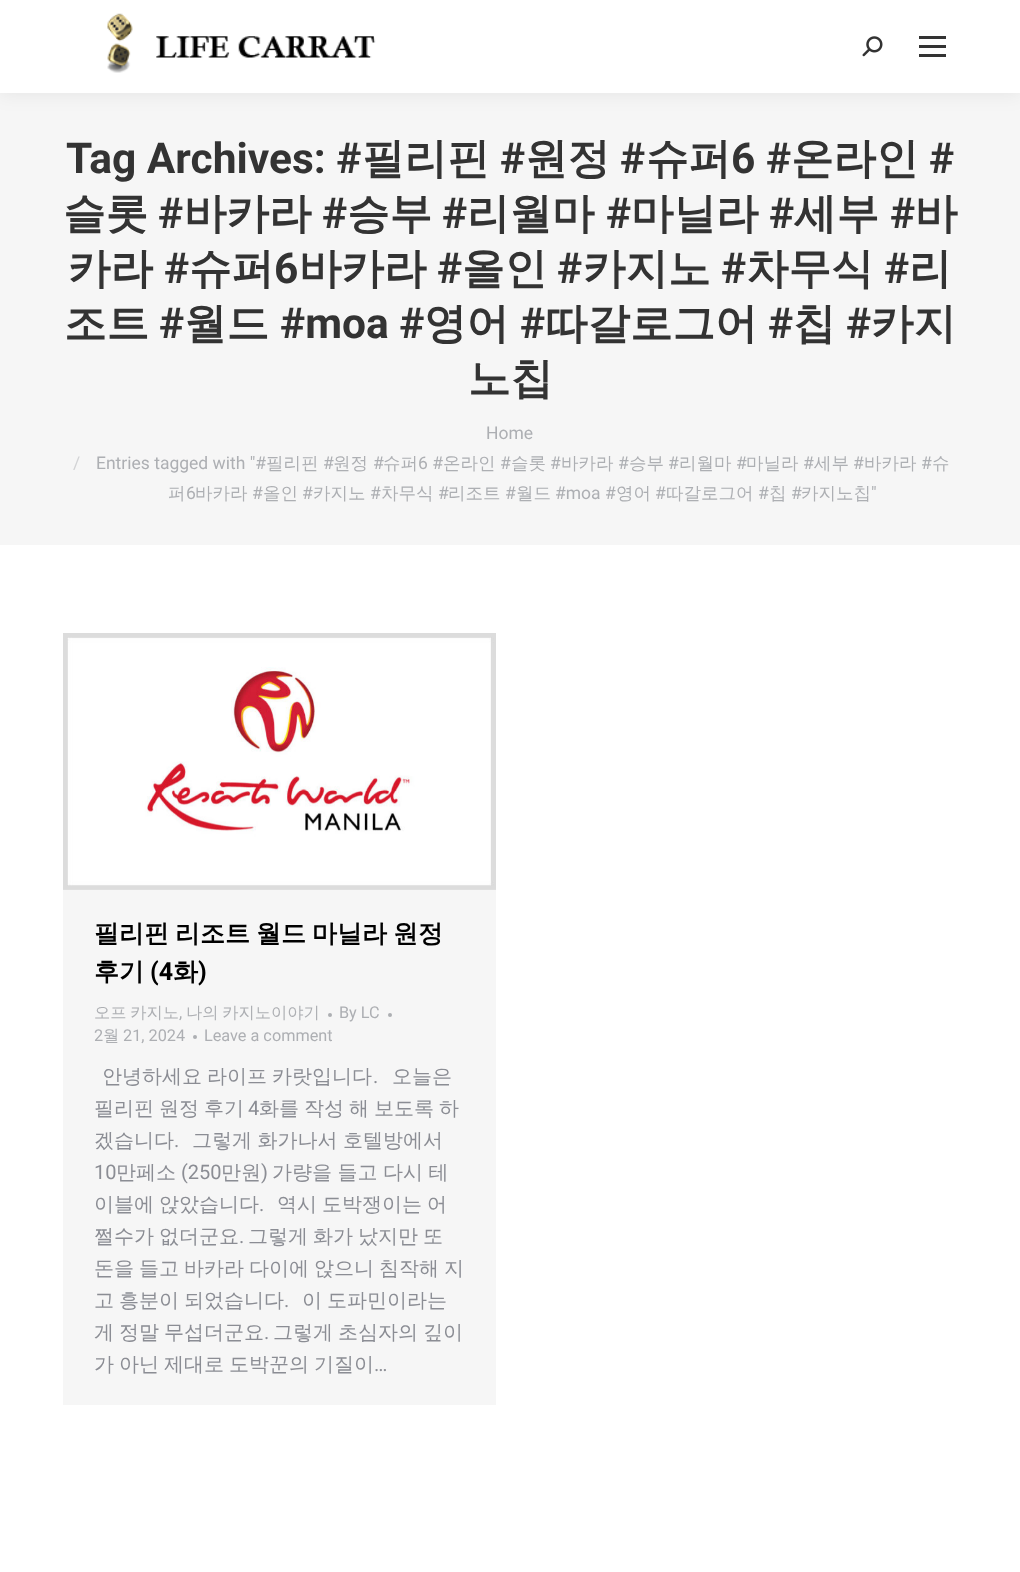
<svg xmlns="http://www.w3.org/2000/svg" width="1020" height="1572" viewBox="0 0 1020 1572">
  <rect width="100%" height="100%" fill="#fff"/>
  <path d="M0 93h1020v452H0z" fill="#f6f6f6"/>
  <path d="M-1 -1h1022v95H-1z" fill="#00000012" filter="blur(9.5px)"/>
  <path d="M0 0h1020v93H0z" fill="#fff"/>
  <image x="107" y="13" width="269" height="60" href="img/1.png"/>
  <image x="862" y="36" width="21" height="21" href="img/2.png"/>
  <path d="M919 36h27v3H919z" fill="#333"/>
  <path d="M919 45h27v3H919z" fill="#333"/>
  <path d="M919 54h27v3H919z" fill="#333"/>
  <path d="M63 889h433v516H63z" fill="#f6f6f6"/>
  <image x="63" y="633" width="433" height="257" href="img/3.png"/>
  <circle cx="330" cy="1015" r="2" fill="#adafb3"/>
  <circle cx="390" cy="1015" r="2" fill="#adafb3"/>
  <circle cx="195" cy="1037" r="2" fill="#adafb3"/>
  <text x="66" y="173" font-family="Roboto" font-size="42.5" font-weight="bold" fill="#333">Tag Archives: #</text>
  <text x="362" y="173" font-family="WenQuanYi Zen Hei" font-size="42.5" font-weight="bold" fill="#333">필리핀</text>
  <text x="500" y="173" font-family="Roboto" font-size="42.5" font-weight="bold" fill="#333">#</text>
  <text x="525" y="173" font-family="WenQuanYi Zen Hei" font-size="42.5" font-weight="bold" fill="#333">원정</text>
  <text x="620" y="173" font-family="Roboto" font-size="42.5" font-weight="bold" fill="#333">#</text>
  <text x="646" y="173" font-family="WenQuanYi Zen Hei" font-size="42.5" font-weight="bold" fill="#333">슈퍼</text>
  <text x="731" y="173" font-family="Roboto" font-size="42.5" font-weight="bold" fill="#333">6 #</text>
  <text x="791" y="173" font-family="WenQuanYi Zen Hei" font-size="42.5" font-weight="bold" fill="#333">온라인</text>
  <text x="929" y="173" font-family="Roboto" font-size="42.5" font-weight="bold" fill="#333">#</text>
  <text x="63" y="228" font-family="WenQuanYi Zen Hei" font-size="42.5" font-weight="bold" fill="#333">슬롯</text>
  <text x="158" y="228" font-family="Roboto" font-size="42.5" font-weight="bold" fill="#333">#</text>
  <text x="184" y="228" font-family="WenQuanYi Zen Hei" font-size="42.5" font-weight="bold" fill="#333">바카라</text>
  <text x="322" y="228" font-family="Roboto" font-size="42.5" font-weight="bold" fill="#333">#</text>
  <text x="347" y="228" font-family="WenQuanYi Zen Hei" font-size="42.5" font-weight="bold" fill="#333">승부</text>
  <text x="442" y="228" font-family="Roboto" font-size="42.5" font-weight="bold" fill="#333">#</text>
  <text x="467" y="228" font-family="WenQuanYi Zen Hei" font-size="42.5" font-weight="bold" fill="#333">리월마</text>
  <text x="606" y="228" font-family="Roboto" font-size="42.5" font-weight="bold" fill="#333">#</text>
  <text x="631" y="228" font-family="WenQuanYi Zen Hei" font-size="42.5" font-weight="bold" fill="#333">마닐라</text>
  <text x="769" y="228" font-family="Roboto" font-size="42.5" font-weight="bold" fill="#333">#</text>
  <text x="794" y="228" font-family="WenQuanYi Zen Hei" font-size="42.5" font-weight="bold" fill="#333">세부</text>
  <text x="890" y="228" font-family="Roboto" font-size="42.5" font-weight="bold" fill="#333">#</text>
  <g font-family="WenQuanYi Zen Hei" font-size="42.5" font-weight="bold" fill="#333">
    <text x="915" y="228">바</text>
    <text x="68" y="283">카라</text>
  </g>
  <text x="164" y="283" font-family="Roboto" font-size="42.5" font-weight="bold" fill="#333">#</text>
  <text x="189" y="283" font-family="WenQuanYi Zen Hei" font-size="42.5" font-weight="bold" fill="#333">슈퍼</text>
  <text x="274" y="283" font-family="Roboto" font-size="42.5" font-weight="bold" fill="#333">6</text>
  <text x="299" y="283" font-family="WenQuanYi Zen Hei" font-size="42.5" font-weight="bold" fill="#333">바카라</text>
  <text x="437" y="283" font-family="Roboto" font-size="42.5" font-weight="bold" fill="#333">#</text>
  <text x="462" y="283" font-family="WenQuanYi Zen Hei" font-size="42.5" font-weight="bold" fill="#333">올인</text>
  <text x="557" y="283" font-family="Roboto" font-size="42.5" font-weight="bold" fill="#333">#</text>
  <text x="583" y="283" font-family="WenQuanYi Zen Hei" font-size="42.5" font-weight="bold" fill="#333">카지노</text>
  <text x="721" y="283" font-family="Roboto" font-size="42.5" font-weight="bold" fill="#333">#</text>
  <text x="746" y="283" font-family="WenQuanYi Zen Hei" font-size="42.5" font-weight="bold" fill="#333">차무식</text>
  <text x="884" y="283" font-family="Roboto" font-size="42.5" font-weight="bold" fill="#333">#</text>
  <g font-family="WenQuanYi Zen Hei" font-size="42.5" font-weight="bold" fill="#333">
    <text x="909" y="283">리</text>
    <text x="64" y="338">조트</text>
  </g>
  <text x="159" y="338" font-family="Roboto" font-size="42.5" font-weight="bold" fill="#333">#</text>
  <text x="184" y="338" font-family="WenQuanYi Zen Hei" font-size="42.5" font-weight="bold" fill="#333">월드</text>
  <text x="280" y="338" font-family="Roboto" font-size="42.5" font-weight="bold" fill="#333">#moa #</text>
  <text x="424" y="338" font-family="WenQuanYi Zen Hei" font-size="42.5" font-weight="bold" fill="#333">영어</text>
  <text x="520" y="338" font-family="Roboto" font-size="42.5" font-weight="bold" fill="#333">#</text>
  <text x="545" y="338" font-family="WenQuanYi Zen Hei" font-size="42.5" font-weight="bold" fill="#333">따갈로그어</text>
  <text x="768" y="338" font-family="Roboto" font-size="42.5" font-weight="bold" fill="#333">#</text>
  <text x="793" y="338" font-family="WenQuanYi Zen Hei" font-size="42.5" font-weight="bold" fill="#333">칩</text>
  <text x="846" y="338" font-family="Roboto" font-size="42.5" font-weight="bold" fill="#333">#</text>
  <g font-family="WenQuanYi Zen Hei" font-size="42.5" font-weight="bold" fill="#333">
    <text x="871" y="338">카지</text>
    <text x="468" y="393">노칩</text>
  </g>
  <text x="486" y="439" font-family="Roboto" font-size="17.5" fill="#adafb3">Home</text>
  <text x="73" y="469" font-family="Roboto" font-size="17.5" fill="#d2d3d5">/</text>
  <text x="96" y="469" font-family="Roboto" font-size="17.5" fill="#adafb3">Entries tagged with "#</text>
  <text x="266" y="469" font-family="WenQuanYi Zen Hei" font-size="17.5" font-weight="500" fill="#adafb3">필리핀</text>
  <text x="323" y="469" font-family="Roboto" font-size="17.5" fill="#adafb3">#</text>
  <text x="333" y="469" font-family="WenQuanYi Zen Hei" font-size="17.5" font-weight="500" fill="#adafb3">원정</text>
  <text x="373" y="469" font-family="Roboto" font-size="17.5" fill="#adafb3">#</text>
  <text x="383" y="469" font-family="WenQuanYi Zen Hei" font-size="17.5" font-weight="500" fill="#adafb3">슈퍼</text>
  <text x="418" y="469" font-family="Roboto" font-size="17.5" fill="#adafb3">6 #</text>
  <text x="443" y="469" font-family="WenQuanYi Zen Hei" font-size="17.5" font-weight="500" fill="#adafb3">온라인</text>
  <text x="500" y="469" font-family="Roboto" font-size="17.5" fill="#adafb3">#</text>
  <text x="511" y="469" font-family="WenQuanYi Zen Hei" font-size="17.5" font-weight="500" fill="#adafb3">슬롯</text>
  <text x="550" y="469" font-family="Roboto" font-size="17.5" fill="#adafb3">#</text>
  <text x="561" y="469" font-family="WenQuanYi Zen Hei" font-size="17.5" font-weight="500" fill="#adafb3">바카라</text>
  <text x="618" y="469" font-family="Roboto" font-size="17.5" fill="#adafb3">#</text>
  <text x="629" y="469" font-family="WenQuanYi Zen Hei" font-size="17.5" font-weight="500" fill="#adafb3">승부</text>
  <text x="668" y="469" font-family="Roboto" font-size="17.5" fill="#adafb3">#</text>
  <text x="679" y="469" font-family="WenQuanYi Zen Hei" font-size="17.5" font-weight="500" fill="#adafb3">리월마</text>
  <text x="736" y="469" font-family="Roboto" font-size="17.5" fill="#adafb3">#</text>
  <text x="746" y="469" font-family="WenQuanYi Zen Hei" font-size="17.5" font-weight="500" fill="#adafb3">마닐라</text>
  <text x="803" y="469" font-family="Roboto" font-size="17.5" fill="#adafb3">#</text>
  <text x="814" y="469" font-family="WenQuanYi Zen Hei" font-size="17.5" font-weight="500" fill="#adafb3">세부</text>
  <text x="853" y="469" font-family="Roboto" font-size="17.5" fill="#adafb3">#</text>
  <text x="864" y="469" font-family="WenQuanYi Zen Hei" font-size="17.5" font-weight="500" fill="#adafb3">바카라</text>
  <text x="921" y="469" font-family="Roboto" font-size="17.5" fill="#adafb3">#</text>
  <g font-family="WenQuanYi Zen Hei" font-size="17.5" font-weight="500" fill="#adafb3">
    <text x="932" y="469">슈</text>
    <text x="168" y="499">퍼</text>
  </g>
  <text x="186" y="499" font-family="Roboto" font-size="17.5" fill="#adafb3">6</text>
  <text x="195" y="499" font-family="WenQuanYi Zen Hei" font-size="17.5" font-weight="500" fill="#adafb3">바카라</text>
  <text x="252" y="499" font-family="Roboto" font-size="17.5" fill="#adafb3">#</text>
  <text x="263" y="499" font-family="WenQuanYi Zen Hei" font-size="17.5" font-weight="500" fill="#adafb3">올인</text>
  <text x="302" y="499" font-family="Roboto" font-size="17.5" fill="#adafb3">#</text>
  <text x="313" y="499" font-family="WenQuanYi Zen Hei" font-size="17.5" font-weight="500" fill="#adafb3">카지노</text>
  <text x="370" y="499" font-family="Roboto" font-size="17.5" fill="#adafb3">#</text>
  <text x="381" y="499" font-family="WenQuanYi Zen Hei" font-size="17.5" font-weight="500" fill="#adafb3">차무식</text>
  <text x="438" y="499" font-family="Roboto" font-size="17.5" fill="#adafb3">#</text>
  <text x="448" y="499" font-family="WenQuanYi Zen Hei" font-size="17.5" font-weight="500" fill="#adafb3">리조트</text>
  <text x="505" y="499" font-family="Roboto" font-size="17.5" fill="#adafb3">#</text>
  <text x="516" y="499" font-family="WenQuanYi Zen Hei" font-size="17.5" font-weight="500" fill="#adafb3">월드</text>
  <text x="555" y="499" font-family="Roboto" font-size="17.5" fill="#adafb3">#moa #</text>
  <text x="616" y="499" font-family="WenQuanYi Zen Hei" font-size="17.5" font-weight="500" fill="#adafb3">영어</text>
  <text x="655" y="499" font-family="Roboto" font-size="17.5" fill="#adafb3">#</text>
  <text x="666" y="499" font-family="WenQuanYi Zen Hei" font-size="17.5" font-weight="500" fill="#adafb3">따갈로그어</text>
  <text x="758" y="499" font-family="Roboto" font-size="17.5" fill="#adafb3">#</text>
  <text x="769" y="499" font-family="WenQuanYi Zen Hei" font-size="17.5" font-weight="500" fill="#adafb3">칩</text>
  <text x="791" y="499" font-family="Roboto" font-size="17.5" fill="#adafb3">#</text>
  <text x="801" y="499" font-family="WenQuanYi Zen Hei" font-size="17.5" font-weight="500" fill="#adafb3">카지노칩</text>
  <text x="871" y="499" font-family="Roboto" font-size="17.5" fill="#adafb3">"</text>
  <g font-family="WenQuanYi Zen Hei" font-size="25" font-weight="bold" fill="#000">
    <text x="94" y="942" word-spacing="-1.5">필리핀 리조트 월드 마닐라 원정</text>
    <text x="94" y="980">후기</text>
  </g>
  <text x="150" y="980" font-family="Roboto" font-size="25" font-weight="bold" fill="#000">(4</text>
  <text x="173" y="980" font-family="WenQuanYi Zen Hei" font-size="25" font-weight="bold" fill="#000">화</text>
  <text x="198" y="980" font-family="Roboto" font-size="25" font-weight="bold" fill="#000">)</text>
  <g font-family="WenQuanYi Zen Hei" font-size="16.25" font-weight="500" fill="#adafb3">
    <text x="94" y="1018" word-spacing="-1">오프 카지노</text>
    <text x="186" y="1018" word-spacing="-1">나의 카지노이야기</text>
  </g>
  <g font-family="Roboto" font-size="16.25" fill="#adafb3">
    <text x="179" y="1018">,</text>
    <text x="339" y="1018">By LC</text>
    <text x="94" y="1041">2</text>
  </g>
  <text x="103" y="1041" font-family="WenQuanYi Zen Hei" font-size="16.25" font-weight="500" fill="#adafb3">월</text>
  <g font-family="Roboto" font-size="16.25" fill="#adafb3">
    <text x="123" y="1041">21, 2024</text>
    <text x="204" y="1041">Leave a comment</text>
  </g>
  <text x="102" y="1083" word-spacing="-1" font-family="WenQuanYi Zen Hei" font-size="20" font-weight="500" fill="#8b8d94">안녕하세요 라이프 카랏입니다</text>
  <text x="373" y="1083" font-family="Roboto" font-size="20" fill="#8b8d94">.</text>
  <g font-family="WenQuanYi Zen Hei" font-size="20" font-weight="500" fill="#8b8d94">
    <text x="392" y="1083">오늘은</text>
    <text x="94" y="1115" word-spacing="-1">필리핀 원정 후기</text>
  </g>
  <text x="248" y="1115" font-family="Roboto" font-size="20" fill="#8b8d94">4</text>
  <g font-family="WenQuanYi Zen Hei" font-size="20" font-weight="500" fill="#8b8d94">
    <text x="259" y="1115" word-spacing="-1">화를 작성 해 보도록 하</text>
    <text x="94" y="1147">겠습니다</text>
  </g>
  <text x="174" y="1147" font-family="Roboto" font-size="20" fill="#8b8d94">.</text>
  <text x="192" y="1147" word-spacing="-0.5" font-family="WenQuanYi Zen Hei" font-size="20" font-weight="500" fill="#8b8d94">그렇게 화가나서 호텔방에서</text>
  <text x="94" y="1179" font-family="Roboto" font-size="20" fill="#8b8d94">10</text>
  <text x="116" y="1179" font-family="WenQuanYi Zen Hei" font-size="20" font-weight="500" fill="#8b8d94">만페소</text>
  <text x="181" y="1179" font-family="Roboto" font-size="20" fill="#8b8d94">(250</text>
  <text x="221" y="1179" font-family="WenQuanYi Zen Hei" font-size="20" font-weight="500" fill="#8b8d94">만원</text>
  <text x="261" y="1179" font-family="Roboto" font-size="20" fill="#8b8d94">)</text>
  <g font-family="WenQuanYi Zen Hei" font-size="20" font-weight="500" fill="#8b8d94">
    <text x="272" y="1179" word-spacing="-0.5">가량을 들고 다시 테</text>
    <text x="94" y="1211" word-spacing="-1">이블에 앉았습니다</text>
  </g>
  <text x="259" y="1211" font-family="Roboto" font-size="20" fill="#8b8d94">.</text>
  <g font-family="WenQuanYi Zen Hei" font-size="20" font-weight="500" fill="#8b8d94">
    <text x="277" y="1211" word-spacing="-1">역시 도박쟁이는 어</text>
    <text x="94" y="1243" word-spacing="-1">쩔수가 없더군요</text>
  </g>
  <text x="239" y="1243" font-family="Roboto" font-size="20" fill="#8b8d94">.</text>
  <g font-family="WenQuanYi Zen Hei" font-size="20" font-weight="500" fill="#8b8d94">
    <text x="248" y="1243" word-spacing="-1">그렇게 화가 났지만 또</text>
    <text x="94" y="1275" word-spacing="-1">돈을 들고 바카라 다이에 앉으니 침작해 지</text>
    <text x="94" y="1307" word-spacing="-1">고 흥분이 되었습니다</text>
  </g>
  <text x="284" y="1307" font-family="Roboto" font-size="20" fill="#8b8d94">.</text>
  <g font-family="WenQuanYi Zen Hei" font-size="20" font-weight="500" fill="#8b8d94">
    <text x="302" y="1307" word-spacing="-1">이 도파민이라는</text>
    <text x="94" y="1339" word-spacing="-1">게 정말 무섭더군요</text>
  </g>
  <text x="264" y="1339" font-family="Roboto" font-size="20" fill="#8b8d94">.</text>
  <g font-family="WenQuanYi Zen Hei" font-size="20" font-weight="500" fill="#8b8d94">
    <text x="273" y="1339" word-spacing="-1">그렇게 초심자의 깊이</text>
    <text x="94" y="1371" word-spacing="-1">가 아닌 제대로 도박꾼의 기질이</text>
  </g>
  <text x="374" y="1371" font-family="Roboto" font-size="20" fill="#8b8d94">…</text>
</svg>
